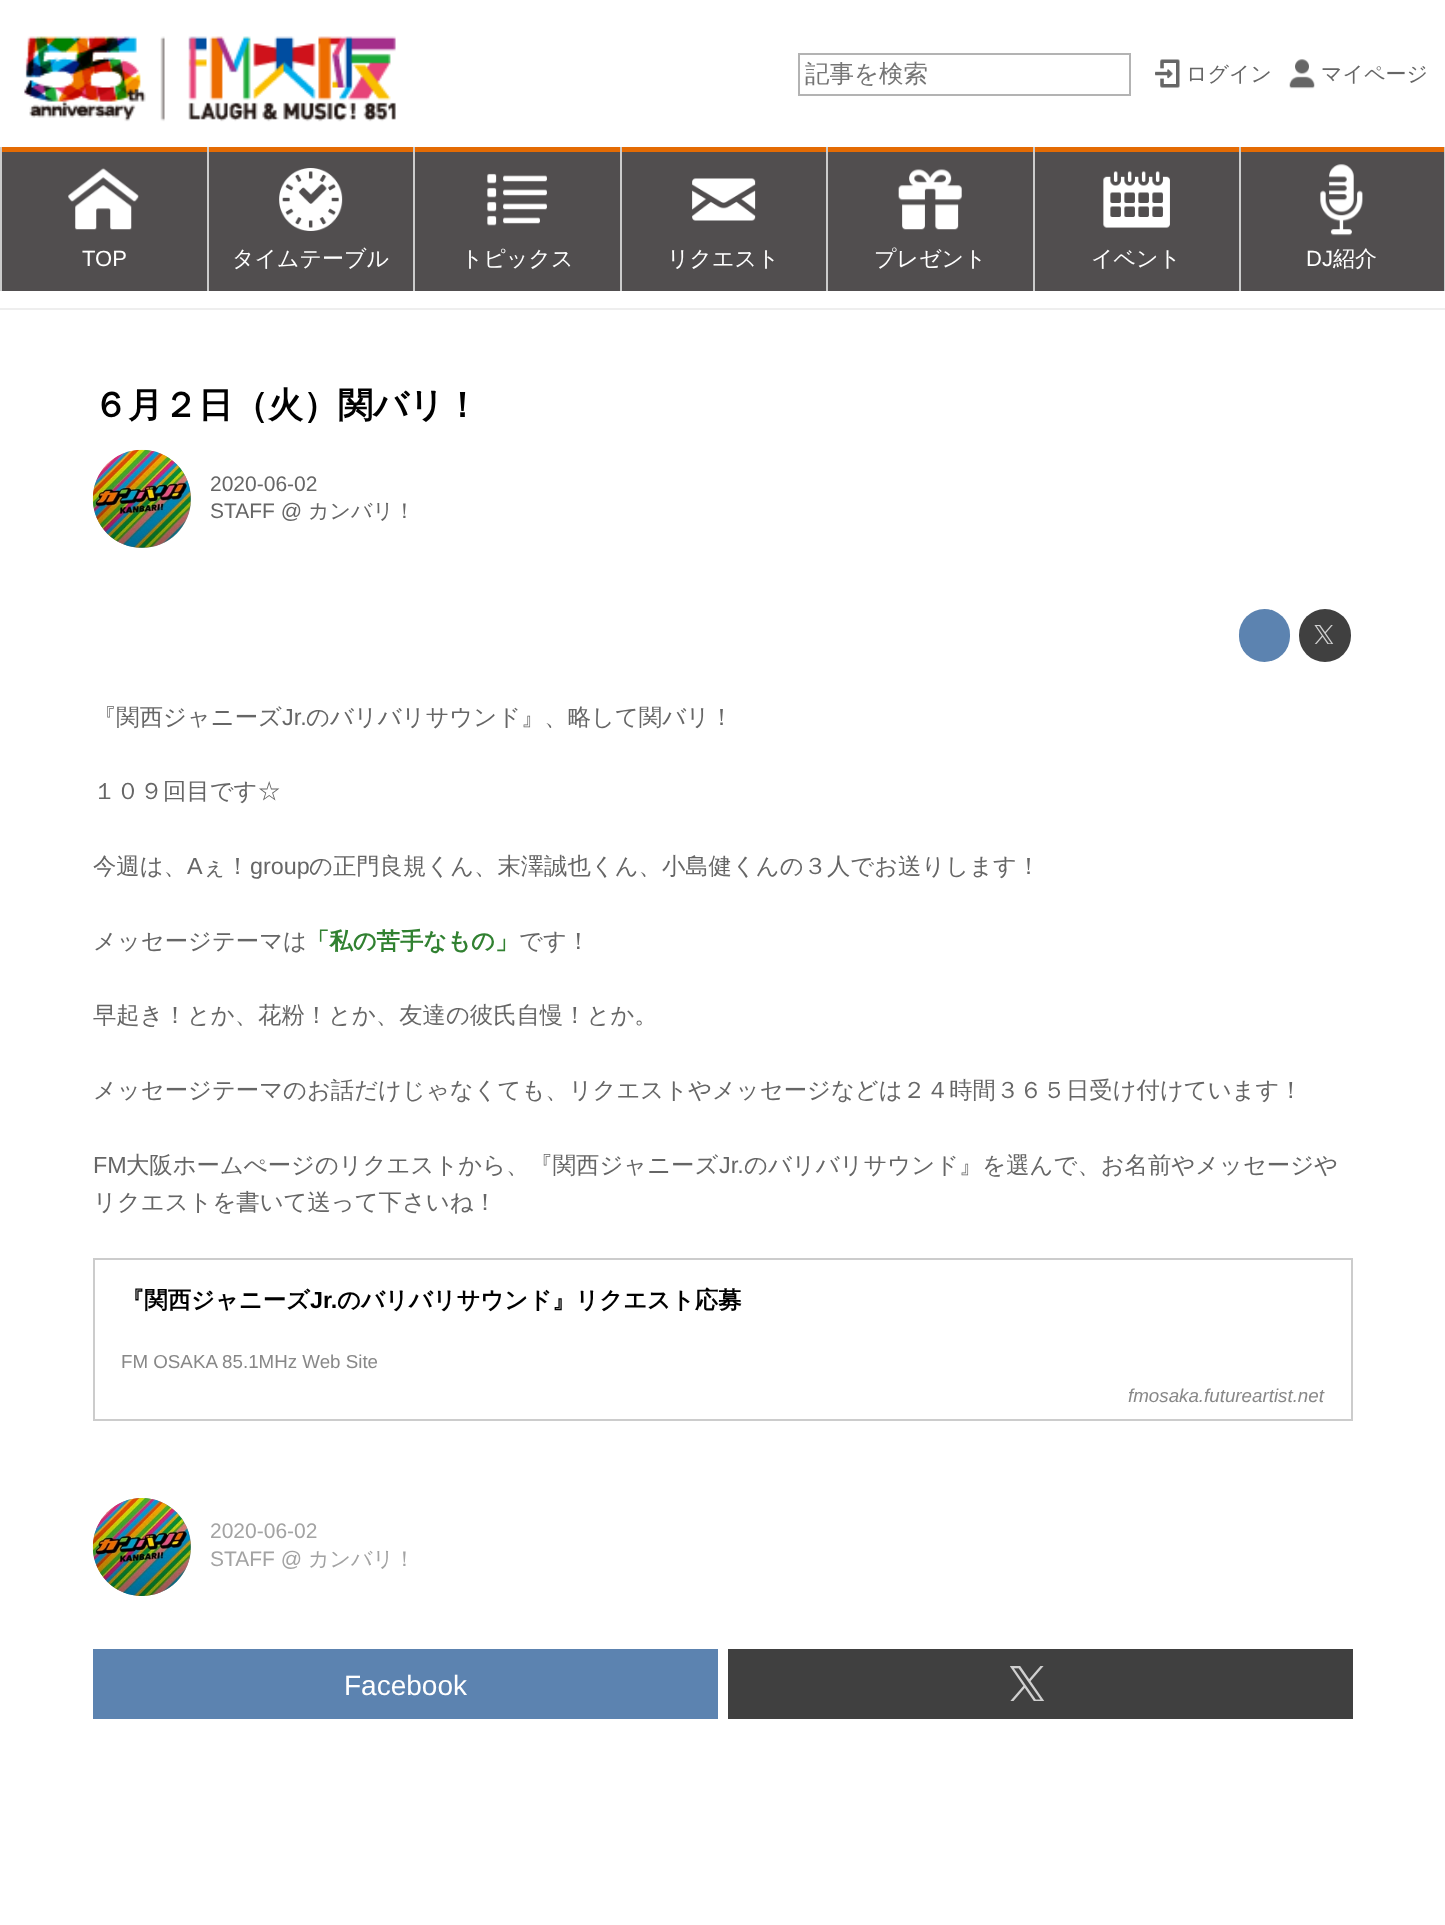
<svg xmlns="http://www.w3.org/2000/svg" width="1445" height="1925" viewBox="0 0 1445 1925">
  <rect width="100%" height="100%" fill="#fff"/>
  <image x="24" y="36" width="372" height="86" href="img/1.png"/>
  <path d="M799 54h331v41H799z" fill="none" stroke="#b3b3b3" stroke-width="2"/>
  <image x="1155" y="59" width="25" height="29" href="img/2.png"/>
  <image x="1289" y="59" width="26" height="30" href="img/3.png"/>
  <path d="M2 152h1442v139H2z" fill="#514e4f"/>
  <image x="68" y="168" width="71" height="62" href="img/4.png"/>
  <path d="M0 147h1445v5H0z" fill="#e46b04"/>
  <path d="M0 147h2v144H0z" fill="#ccc"/>
  <image x="279" y="168" width="64" height="63" href="img/5.png"/>
  <path d="M207 147h2v144H207z" fill="#ccc"/>
  <image x="487" y="173" width="60" height="53" href="img/6.png"/>
  <path d="M413 147h2v144H413z" fill="#ccc"/>
  <image x="692" y="178" width="64" height="43" href="img/7.png"/>
  <path d="M620 147h2v144H620z" fill="#ccc"/>
  <image x="898" y="169" width="64" height="61" href="img/8.png"/>
  <path d="M826 147h2v144H826z" fill="#ccc"/>
  <image x="1103" y="171" width="67" height="57" href="img/9.png"/>
  <path d="M1033 147h2v144H1033z" fill="#ccc"/>
  <image x="1320" y="164" width="43" height="72" href="img/10.png"/>
  <path d="M1444 147h1v144H1444z" fill="#ccc"/>
  <path d="M1239 147h2v144H1239z" fill="#ccc"/>
  <path d="M0 308h1445v2H0z" fill="#eee"/>
  <circle cx="142" cy="499" r="49" fill="#888"/>
  <image x="92" y="449" width="99" height="99" href="img/11.png"/>
  <rect x="1239" y="609" width="51" height="53" rx="25.5" fill="#5c83b0"/>
  <rect x="1299" y="609" width="52" height="53" rx="26" fill="#404040"/>
  <image x="1314" y="625" width="20" height="19" href="img/12.png"/>
  <path d="M94 1259h1258v161H94z" fill="none" stroke="#ccc" stroke-width="2"/>
  <circle cx="142" cy="1547" r="49" fill="#888"/>
  <image x="92" y="1498" width="99" height="98" href="img/13.png"/>
  <path d="M93 1649h625v70H93z" fill="#5c83b0"/>
  <path d="M728 1649h625v70H728z" fill="#404040"/>
  <image x="1010" y="1666" width="35" height="35" href="img/14.png"/>
  <text x="805" y="82" font-family="WenQuanYi Zen Hei" font-size="24.5" font-weight="500" fill="#757575">記事を検索</text>
  <g font-family="WenQuanYi Zen Hei" font-size="21" font-weight="500" fill="#666">
    <text x="1186" y="81">ログイン</text>
    <text x="1321" y="81">マイページ</text>
  </g>
  <text x="82" y="266" font-family="Liberation Sans" font-size="22" fill="#fff">TOP</text>
  <g font-family="WenQuanYi Zen Hei" font-size="22" font-weight="500" fill="#fff">
    <text x="232" y="266">タイムテーブル</text>
    <text x="461" y="266">トピックス</text>
    <text x="667" y="266">リクエスト</text>
    <text x="874" y="266">プレゼント</text>
    <text x="1091" y="266">イベント</text>
  </g>
  <text x="1306" y="266" font-family="Liberation Sans" font-size="22" fill="#fff">DJ</text>
  <text x="1333" y="266" font-family="WenQuanYi Zen Hei" font-size="22" font-weight="500" fill="#fff">紹介</text>
  <text x="93" y="417" font-family="WenQuanYi Zen Hei" font-size="35" font-weight="bold" fill="#000">６月２日（火）関バリ！</text>
  <g font-family="Liberation Sans" font-size="21" fill="#666">
    <text x="210" y="491">2020-06-02</text>
    <text x="210" y="518">STAFF @</text>
  </g>
  <text x="308" y="518" font-family="WenQuanYi Zen Hei" font-size="21" font-weight="500" fill="#666">カンバリ！</text>
  <text x="93" y="725" font-family="WenQuanYi Zen Hei" font-size="23.35" font-weight="500" fill="#666">『関西ジャニーズ</text>
  <text x="282" y="725" font-family="Liberation Sans" font-size="23.35" fill="#666">Jr.</text>
  <g font-family="WenQuanYi Zen Hei" font-size="23.35" font-weight="500" fill="#666">
    <text x="306" y="725">のバリバリサウンド』、略して関バリ！</text>
    <text x="93" y="799">１０９回目です☆</text>
    <text x="93" y="874">今週は、</text>
  </g>
  <text x="187" y="874" font-family="Liberation Sans" font-size="23.35" fill="#666">A</text>
  <text x="202" y="874" font-family="WenQuanYi Zen Hei" font-size="23.35" font-weight="500" fill="#666">ぇ！</text>
  <text x="250" y="874" font-family="Liberation Sans" font-size="23.35" fill="#666">group</text>
  <g font-family="WenQuanYi Zen Hei" font-size="23.35" font-weight="500" fill="#666">
    <text x="309" y="874">の正門良規くん、末澤誠也くん、小島健くんの３人でお送りします！</text>
    <text x="93" y="949">メッセージテーマは</text>
  </g>
  <text x="306" y="949" font-family="WenQuanYi Zen Hei" font-size="23.35" font-weight="bold" fill="#318131">「私の苦手なもの」</text>
  <g font-family="WenQuanYi Zen Hei" font-size="23.35" font-weight="500" fill="#666">
    <text x="519" y="949">です！</text>
    <text x="93" y="1023">早起き！とか、花粉！とか、友達の彼氏自慢！とか。</text>
    <text x="93" y="1098">メッセージテーマのお話だけじゃなくても、リクエストやメッセージなどは２４時間３６５日受け付けています！</text>
  </g>
  <text x="93" y="1173" font-family="Liberation Sans" font-size="23.35" fill="#666">FM</text>
  <text x="126" y="1173" font-family="WenQuanYi Zen Hei" font-size="23.35" font-weight="500" fill="#666">大阪ホームぺージのリクエストから、『関西ジャニーズ</text>
  <text x="719" y="1173" font-family="Liberation Sans" font-size="23.35" fill="#666">Jr.</text>
  <g font-family="WenQuanYi Zen Hei" font-size="23.35" font-weight="500" fill="#666">
    <text x="744" y="1173">のバリバリサウンド』を選んで、お名前やメッセージや</text>
    <text x="93" y="1210">リクエストを書いて送って下さいね！</text>
  </g>
  <text x="121" y="1308" font-family="WenQuanYi Zen Hei" font-size="23.35" font-weight="bold" fill="#000">『関西ジャニーズ</text>
  <text x="310" y="1308" font-family="Liberation Sans" font-size="23.35" font-weight="bold" fill="#000">Jr.</text>
  <text x="337" y="1308" font-family="WenQuanYi Zen Hei" font-size="23.35" font-weight="bold" fill="#000">のバリバリサウンド』リクエスト応募</text>
  <text x="121" y="1368" font-family="Liberation Sans" font-size="18.75" fill="#888">FM OSAKA 85.1MHz Web Site</text>
  <text x="1128" y="1402" font-family="Liberation Sans" font-size="18.75" font-style="italic" fill="#888">fmosaka.futureartist.net</text>
  <g font-family="Liberation Sans" font-size="21" fill="#a3a3a3">
    <text x="210" y="1538">2020-06-02</text>
    <text x="210" y="1566">STAFF @</text>
  </g>
  <text x="308" y="1566" font-family="WenQuanYi Zen Hei" font-size="21" font-weight="500" fill="#a3a3a3">カンバリ！</text>
  <text x="344" y="1695" font-family="Liberation Sans" font-size="28" fill="#fff">Facebook</text>
</svg>
